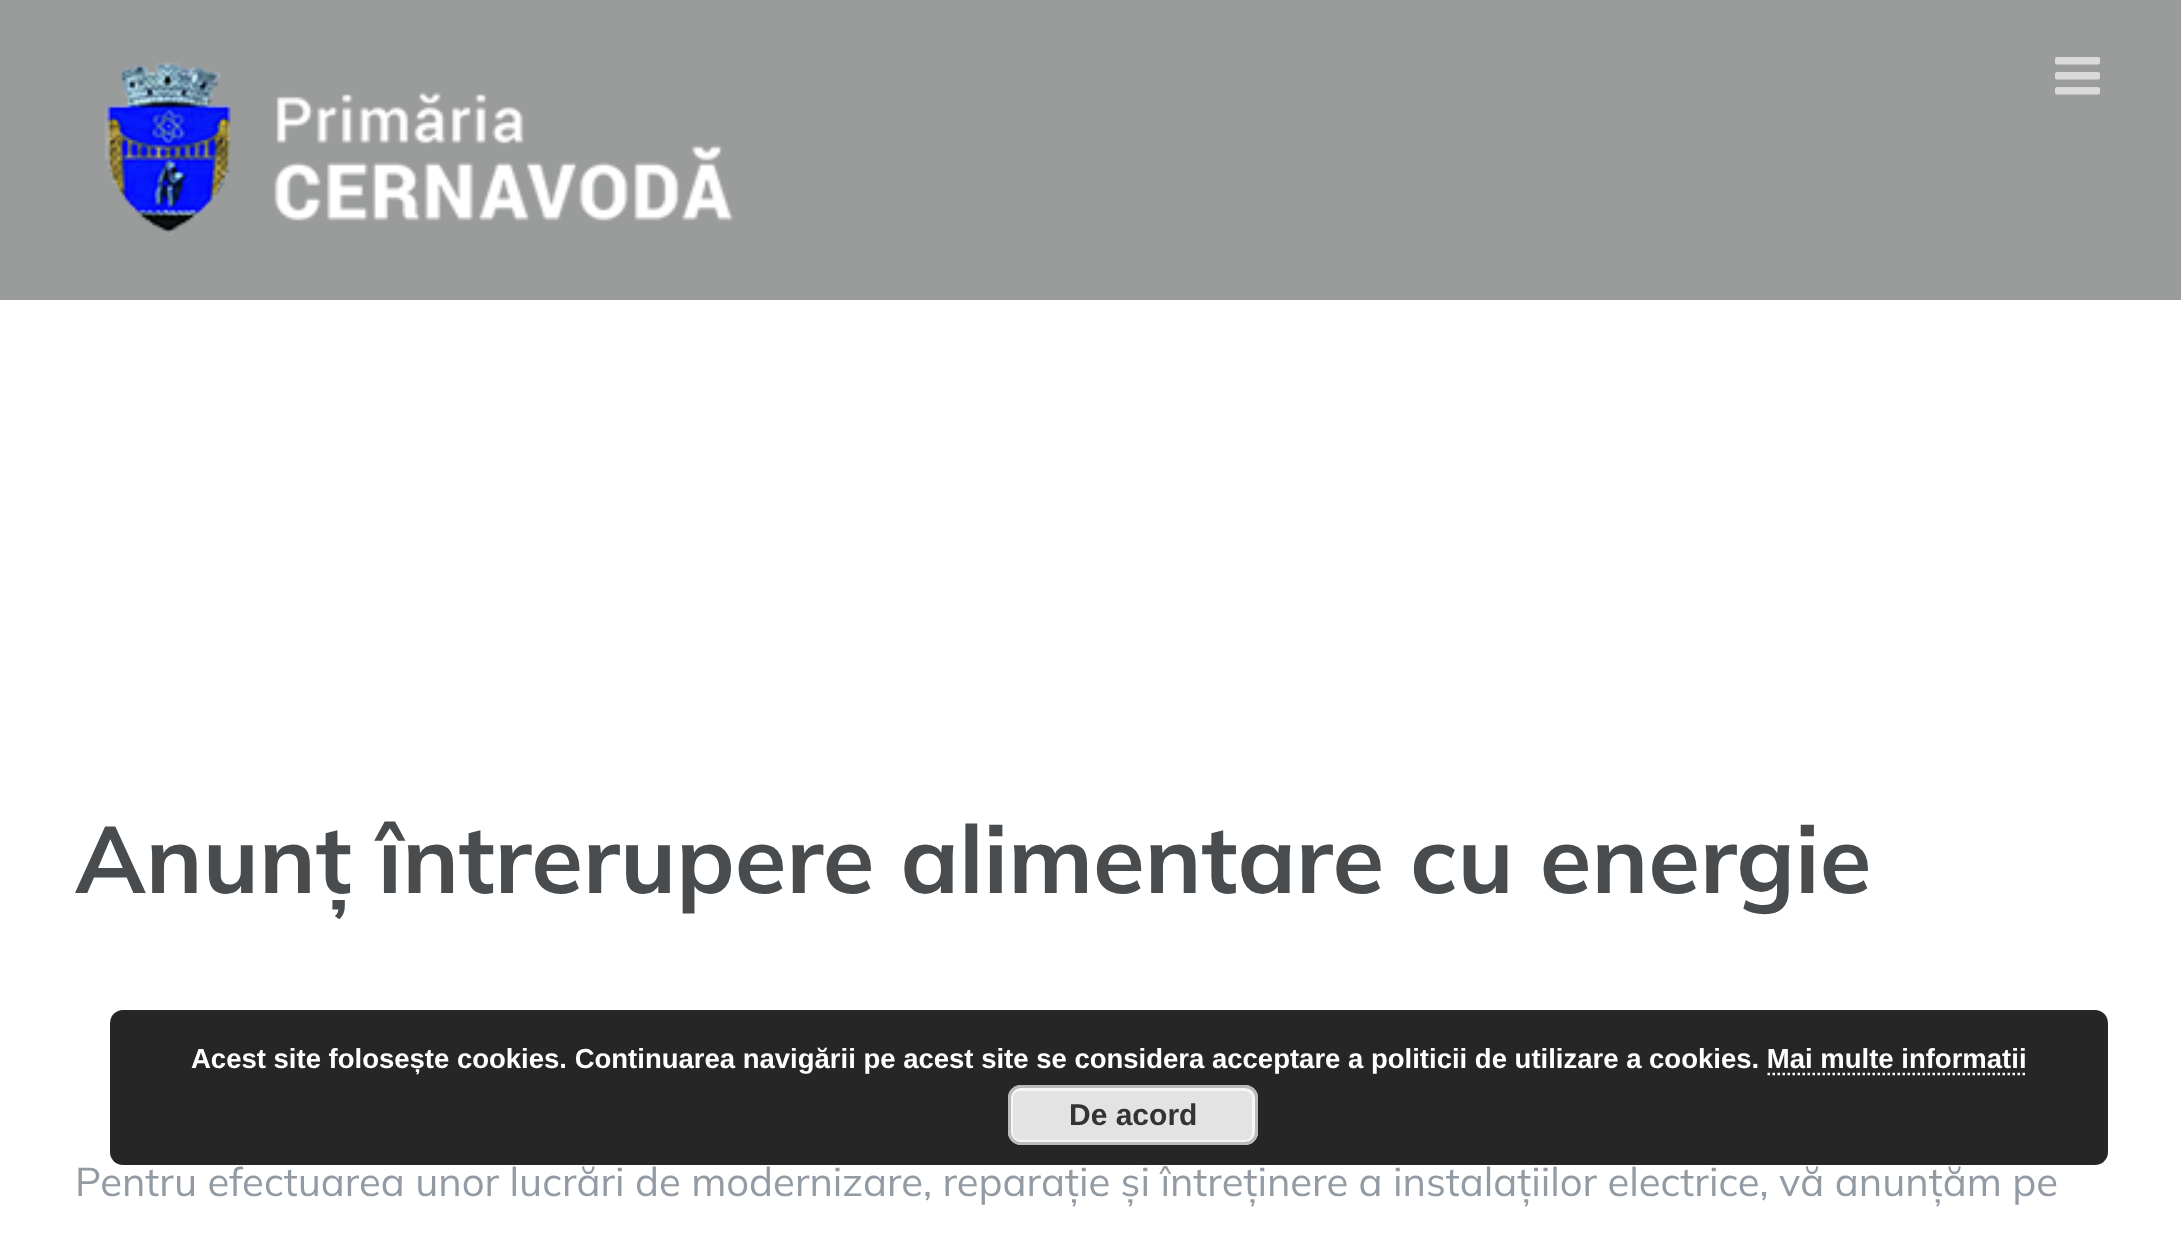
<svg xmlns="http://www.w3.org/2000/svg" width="2181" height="1240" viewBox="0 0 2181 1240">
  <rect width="100%" height="100%" fill="#fff"/>
  <path d="M0 0h2181v300H0z" fill="#9a9b9b"/>
  <image x="104" y="62" width="629" height="173" href="img/1.png"/>
  <image x="2055" y="57" width="45" height="38" href="img/2.png"/>
  <rect x="110" y="1010" width="1998" height="155" rx="13" fill="#000000d9"/>
  <path d="M1767.5 1074H2025" fill="none" stroke="#fff" stroke-width="2.5" stroke-dasharray="2.5 2.5"/>
  <rect x="1008" y="1085" width="250" height="60" rx="13" fill="#e3e3e3"/>
  <rect x="1011.5" y="1089.5" width="242" height="52" rx="8.5" fill="none" stroke="#f6f6f6" stroke-width="3"/>
  <rect x="1009.5" y="1086.5" width="247" height="57" rx="11.5" fill="none" stroke="#bbb" stroke-width="3"/>
  <text x="75" y="893" font-family="Mulish" font-size="94.4" font-weight="bold" fill="#494c4e">Anunț întrerupere alimentare cu energie</text>
  <text x="75" y="1196" font-family="Mulish" font-size="40" fill="#929aa3">Pentru efectuarea unor lucrări de modernizare, reparație și întreținere a instalațiilor electrice, vă anunțăm pe</text>
  <text x="191" y="1068" font-family="Liberation Sans" font-size="27.5" font-weight="bold" fill="#fff">Acest site folosește cookies. Continuarea navigării pe acest site se considera acceptare a politicii de utilizare a cookies. Mai multe informatii</text>
  <text x="1069" y="1125" font-family="Liberation Sans" font-size="30" font-weight="bold" fill="#333">De acord</text>
</svg>
